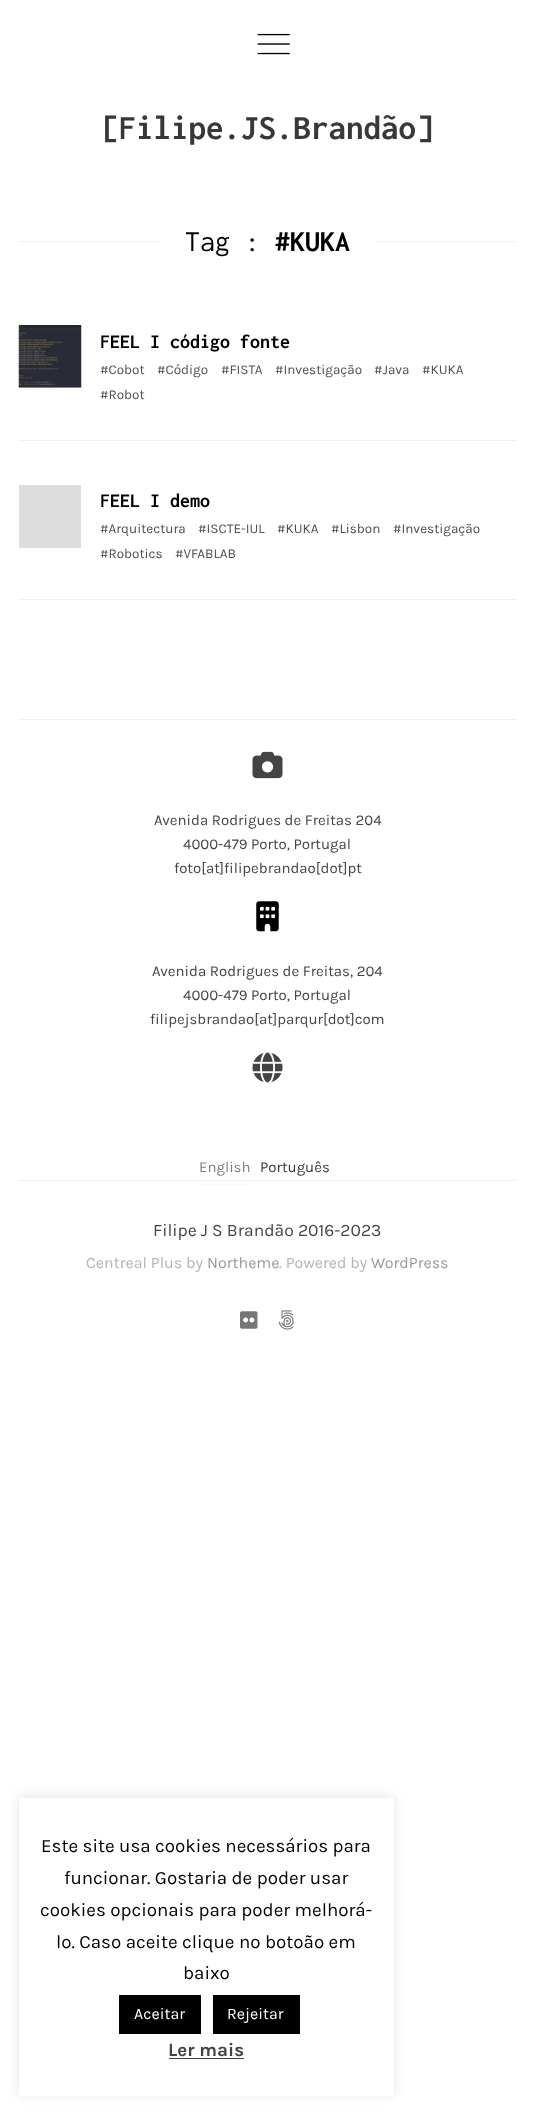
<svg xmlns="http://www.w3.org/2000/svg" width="535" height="2115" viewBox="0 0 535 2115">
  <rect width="100%" height="100%" fill="#fff"/>
  <image x="257" y="33" width="33" height="22" href="img/1.png"/>
  <path d="M19 241h141v1H19z" fill="#f0f0f0"/>
  <path d="M375 241h141v1H375z" fill="#f0f0f0"/>
  <path d="M19 440h497v1H19z" fill="#f0f0f0"/>
  <path d="M19 387h62v1H19z" fill="#ddd"/>
  <image x="18" y="325" width="64" height="63" href="img/2.png"/>
  <path d="M19 599h497v1H19z" fill="#f0f0f0"/>
  <path d="M19 485h62v63H19z" fill="#ddd"/>
  <path d="M19 719h497v1H19z" fill="#f0f0f0"/>
  <image x="252" y="751" width="31" height="28" href="img/3.png"/>
  <image x="256" y="901" width="23" height="31" href="img/4.png"/>
  <image x="252" y="1052" width="31" height="31" href="img/5.png"/>
  <path d="M199 1184h51v1H199z" fill="#f8f8f8"/>
  <path d="M19 1180h497v1H19z" fill="#f0f0f0"/>
  <image x="240" y="1311" width="18" height="18" href="img/6.png"/>
  <image x="278" y="1310" width="16" height="20" href="img/7.png"/>
  <path d="M19 1796h375v299H19z" fill="#acabab4d" filter="blur(6px)"/>
  <path d="M19 1798h375v298H19z" fill="#fff"/>
  <path d="M119 1995h82v39H119z" fill="#000"/>
  <path d="M213 1995h87v39H213z" fill="#000"/>
  <path d="M169 2058h75v1H169z" fill="#444"/>
  <text x="101" y="139" font-family="Inconsolata" font-size="35" font-weight="bold" fill="#383838">[Filipe.JS.Brandão]</text>
  <text x="185" y="251" font-family="Inconsolata" font-size="30" fill="#000">Tag :</text>
  <text x="275" y="251" font-family="Inconsolata" font-size="30" font-weight="bold" fill="#000">#KUKA</text>
  <text x="100" y="348" font-family="Inconsolata" font-size="20" font-weight="bold" fill="#000">FEEL I código fonte</text>
  <g font-family="Karla" font-size="13.5" fill="#4d4d4d">
    <text x="100" y="374">#Cobot</text>
    <text x="157" y="374">#Código</text>
    <text x="221" y="374">#FISTA</text>
    <text x="275" y="374">#Investigação</text>
    <text x="374" y="374">#Java</text>
    <text x="422" y="374">#KUKA</text>
    <text x="100" y="399">#Robot</text>
  </g>
  <text x="100" y="507" font-family="Inconsolata" font-size="20" font-weight="bold" fill="#000">FEEL I demo</text>
  <g font-family="Karla" font-size="13.5" fill="#4d4d4d">
    <text x="100" y="533">#Arquitectura</text>
    <text x="198" y="533">#ISCTE-IUL</text>
    <text x="277" y="533">#KUKA</text>
    <text x="331" y="533">#Lisbon</text>
    <text x="393" y="533">#Investigação</text>
    <text x="100" y="558">#Robotics</text>
    <text x="175" y="558">#VFABLAB</text>
  </g>
  <g font-family="Karla" font-size="15" fill="#444">
    <text x="154" y="825">Avenida Rodrigues de Freitas 204</text>
    <text x="183" y="849">4000-479 Porto, Portugal</text>
    <text x="174" y="873">foto[at]filipebrandao[dot]pt</text>
    <text x="152" y="976">Avenida Rodrigues de Freitas, 204</text>
    <text x="183" y="1000">4000-479 Porto, Portugal</text>
    <text x="150" y="1024">filipejsbrandao[at]parqur[dot]com</text>
  </g>
  <text x="199" y="1172" font-family="Karla" font-size="15" fill="#808080">English</text>
  <text x="260" y="1172" font-family="Karla" font-size="15" fill="#383838">Português</text>
  <text x="153" y="1236" font-family="Karla" font-size="17.5" fill="#444">Filipe J S Brandão 2016-2023</text>
  <text x="86" y="1268" font-family="Karla" font-size="16" fill="#b4b4b4">Centreal Plus by</text>
  <text x="207" y="1268" font-family="Karla" font-size="16" fill="#999">Northeme</text>
  <text x="279" y="1268" font-family="Karla" font-size="16" fill="#b4b4b4">. Powered by</text>
  <text x="371" y="1268" font-family="Karla" font-size="16" fill="#999">WordPress</text>
  <g font-family="Karla" font-size="18.75" fill="#000">
    <text x="41" y="1852">Este site usa cookies necessários para</text>
    <text x="64" y="1884">funcionar. Gostaria de poder usar</text>
    <text x="40" y="1916">cookies opcionais para poder melhorá-</text>
    <text x="56" y="1948">lo. Caso aceite clique no botoão em</text>
    <text x="183" y="1979">baixo</text>
  </g>
  <g font-family="Karla" font-size="16" fill="#fff">
    <text x="134" y="2019">Aceitar</text>
    <text x="227" y="2019">Rejeitar</text>
  </g>
  <text x="168" y="2056" font-family="Karla" font-size="18.75" font-weight="bold" fill="#444">Ler mais</text>
</svg>
